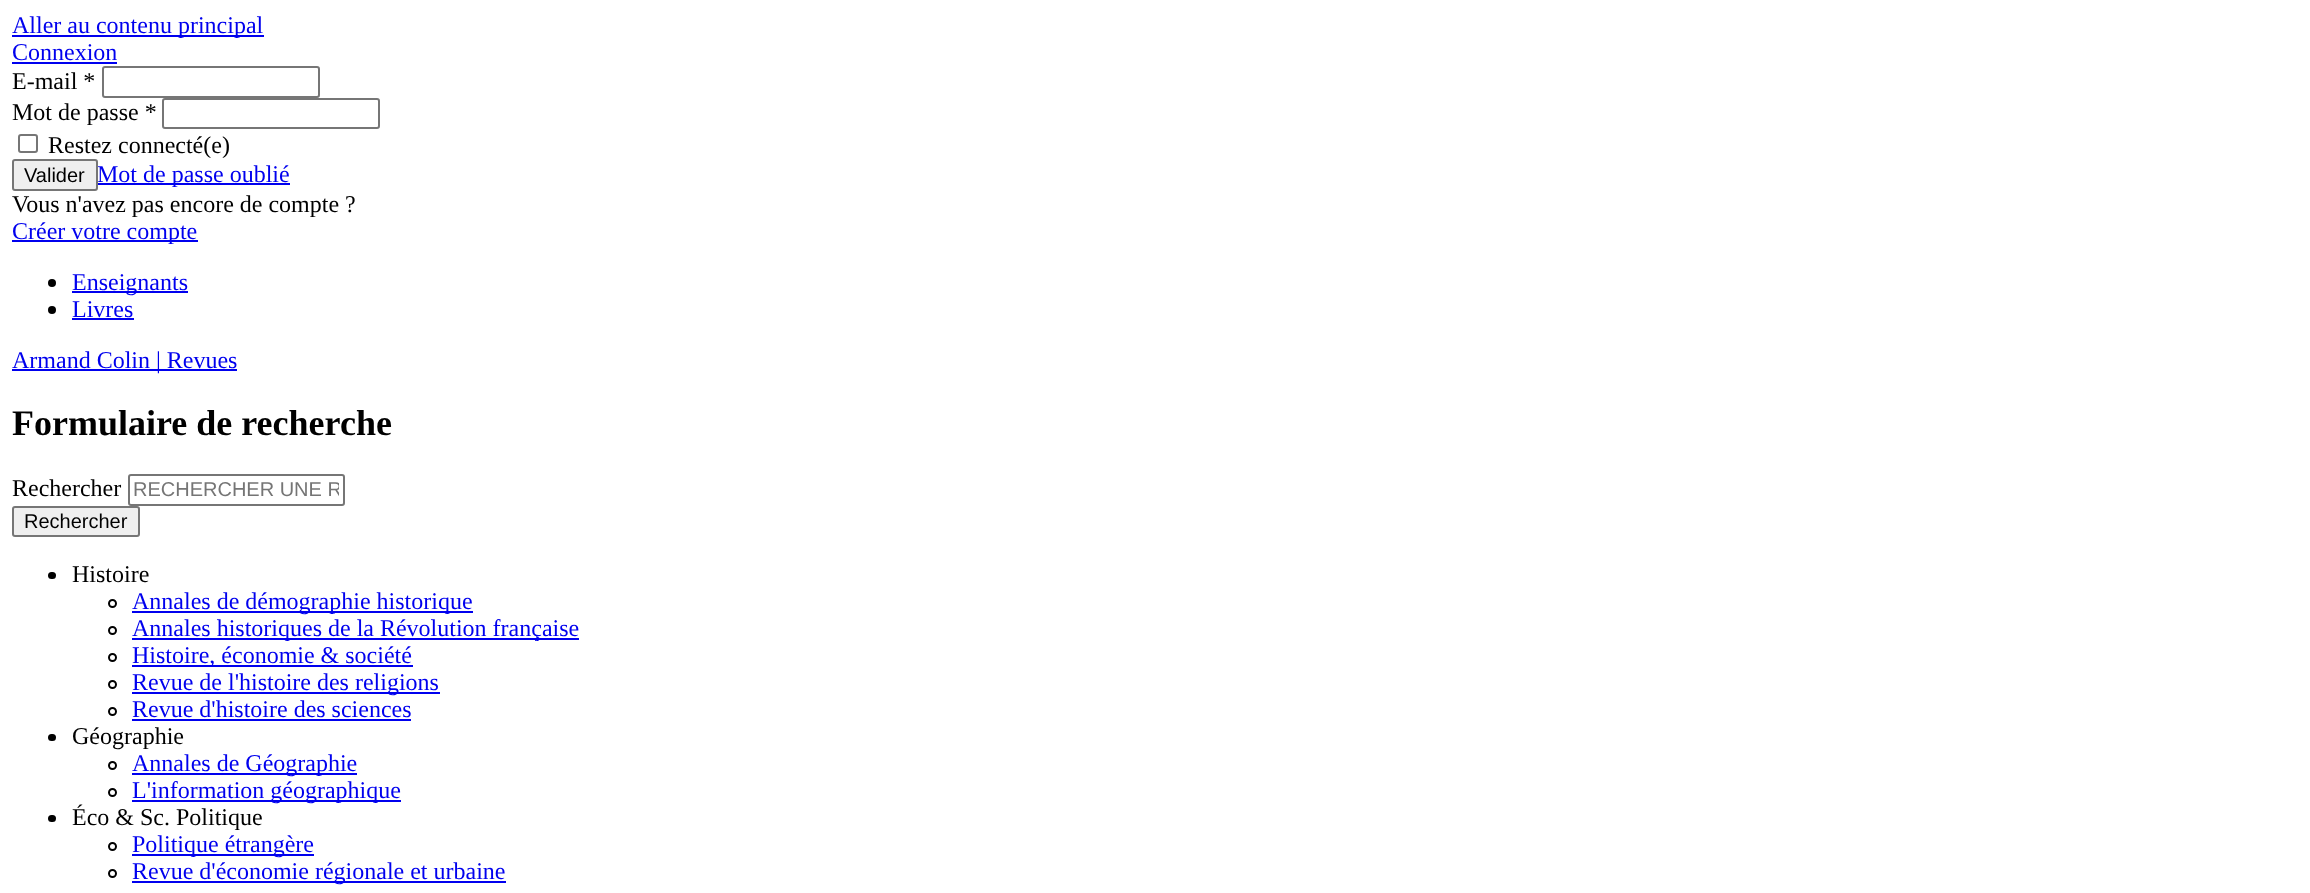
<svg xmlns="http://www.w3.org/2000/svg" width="2310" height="893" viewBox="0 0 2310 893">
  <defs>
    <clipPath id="clip1"><path d="M134 479h205v22H134z"/></clipPath>
  </defs>
  <rect width="100%" height="100%" fill="#fff"/>
  <path d="M12 35h252v2H12z" fill="#00e"/>
  <path d="M12 62h105v2H12z" fill="#00e"/>
  <rect x="103" y="67" width="216" height="30" rx="2" fill="none" stroke="#767676" stroke-width="2"/>
  <rect x="163" y="99" width="216" height="29" rx="2" fill="none" stroke="#767676" stroke-width="2"/>
  <rect x="19" y="135" width="18" height="17" rx="2" fill="none" stroke="#767676" stroke-width="2"/>
  <path d="M98 183h192v2H98z" fill="#00e"/>
  <path d="M12 240h186v2H12z" fill="#00e"/>
  <circle cx="52" cy="283" r="4" fill="#000"/>
  <path d="M72 291h116v2H72z" fill="#00e"/>
  <circle cx="52" cy="310" r="4" fill="#000"/>
  <path d="M72 318h62v2H72z" fill="#00e"/>
  <path d="M12 369h225v2H12z" fill="#00e"/>
  <rect x="129" y="475" width="215" height="30" rx="2" fill="none" stroke="#767676" stroke-width="2"/>
  <rect x="13" y="507" width="126" height="29" rx="2" fill="#efefef" stroke="#767676" stroke-width="2"/>
  <rect x="48" y="572" width="8" height="7" rx="3.5" fill="#000"/>
  <circle cx="112.5" cy="603.5" r="3.5" fill="none" stroke="#000" stroke-width="2"/>
  <path d="M132 611h341v2H132z" fill="#00e"/>
  <circle cx="112.5" cy="630.5" r="3.5" fill="none" stroke="#000" stroke-width="2"/>
  <path d="M132 638h447v2H132z" fill="#00e"/>
  <circle cx="112.5" cy="657.5" r="3.5" fill="none" stroke="#000" stroke-width="2"/>
  <path d="M132 665h281v2H132z" fill="#00e"/>
  <circle cx="112.5" cy="684.5" r="3.5" fill="none" stroke="#000" stroke-width="2"/>
  <path d="M132 692h308v2H132z" fill="#00e"/>
  <circle cx="112.5" cy="711.5" r="3.5" fill="none" stroke="#000" stroke-width="2"/>
  <path d="M132 719h279v2H132z" fill="#00e"/>
  <rect x="48" y="734" width="8" height="7" rx="3.5" fill="#000"/>
  <circle cx="112.5" cy="765.5" r="3.5" fill="none" stroke="#000" stroke-width="2"/>
  <path d="M132 773h225v2H132z" fill="#00e"/>
  <circle cx="112.5" cy="792.5" r="3.5" fill="none" stroke="#000" stroke-width="2"/>
  <path d="M132 800h269v2H132z" fill="#00e"/>
  <rect x="48" y="815" width="8" height="7" rx="3.5" fill="#000"/>
  <circle cx="112.5" cy="846.5" r="3.5" fill="none" stroke="#000" stroke-width="2"/>
  <path d="M132 854h182v2H132z" fill="#00e"/>
  <circle cx="112.5" cy="873.5" r="3.5" fill="none" stroke="#000" stroke-width="2"/>
  <path d="M132 881h374v2H132z" fill="#00e"/>
  <g font-family="Liberation Serif" font-size="24" fill="#00e">
    <text x="12" y="33">Aller au contenu principal</text>
    <text x="12" y="60">Connexion</text>
  </g>
  <g font-family="Liberation Serif" font-size="24" fill="#000">
    <text x="12" y="89">E-mail *</text>
    <text x="12" y="120">Mot de passe *</text>
    <text x="48" y="153">Restez connecté(e)</text>
  </g>
  <text x="97" y="182" font-family="Liberation Serif" font-size="24" fill="#00e">Mot de passe oublié</text>
  <rect x="13" y="160" width="84" height="30" rx="2" fill="#efefef" stroke="#767676" stroke-width="2"/>
  <text x="24" y="182" font-family="Liberation Sans" font-size="20" fill="#000">Valider</text>
  <text x="12" y="212" font-family="Liberation Serif" font-size="24" fill="#000">Vous n'avez pas encore de compte ?</text>
  <g font-family="Liberation Serif" font-size="24" fill="#00e">
    <text x="12" y="239">Créer votre compte</text>
    <text x="72" y="290">Enseignants</text>
    <text x="72" y="317">Livres</text>
    <text x="12" y="368">Armand Colin | Revues</text>
  </g>
  <text x="12" y="435" font-family="Liberation Serif" font-size="36" font-weight="bold" fill="#000">Formulaire de recherche</text>
  <text x="12" y="496" font-family="Liberation Serif" font-size="24" fill="#000">Rechercher</text>
  <g clip-path="url(#clip1)">
    <text x="133" y="496" font-family="Liberation Sans" font-size="20" fill="#757575">RECHERCHER UNE R</text>
  </g>
  <text x="24" y="528" font-family="Liberation Sans" font-size="20" fill="#000">Rechercher</text>
  <text x="72" y="582" font-family="Liberation Serif" font-size="24" fill="#000">Histoire</text>
  <g font-family="Liberation Serif" font-size="24" fill="#00e">
    <text x="132" y="609">Annales de démographie historique</text>
    <text x="132" y="636">Annales historiques de la Révolution française</text>
    <text x="132" y="663">Histoire, économie &amp; société</text>
    <text x="132" y="690">Revue de l'histoire des religions</text>
    <text x="132" y="717">Revue d'histoire des sciences</text>
  </g>
  <text x="72" y="744" font-family="Liberation Serif" font-size="24" fill="#000">Géographie</text>
  <g font-family="Liberation Serif" font-size="24" fill="#00e">
    <text x="132" y="771">Annales de Géographie</text>
    <text x="132" y="798">L'information géographique</text>
  </g>
  <text x="72" y="825" font-family="Liberation Serif" font-size="24" fill="#000">Éco &amp; Sc. Politique</text>
  <g font-family="Liberation Serif" font-size="24" fill="#00e">
    <text x="132" y="852">Politique étrangère</text>
    <text x="132" y="879">Revue d'économie régionale et urbaine</text>
  </g>
</svg>
